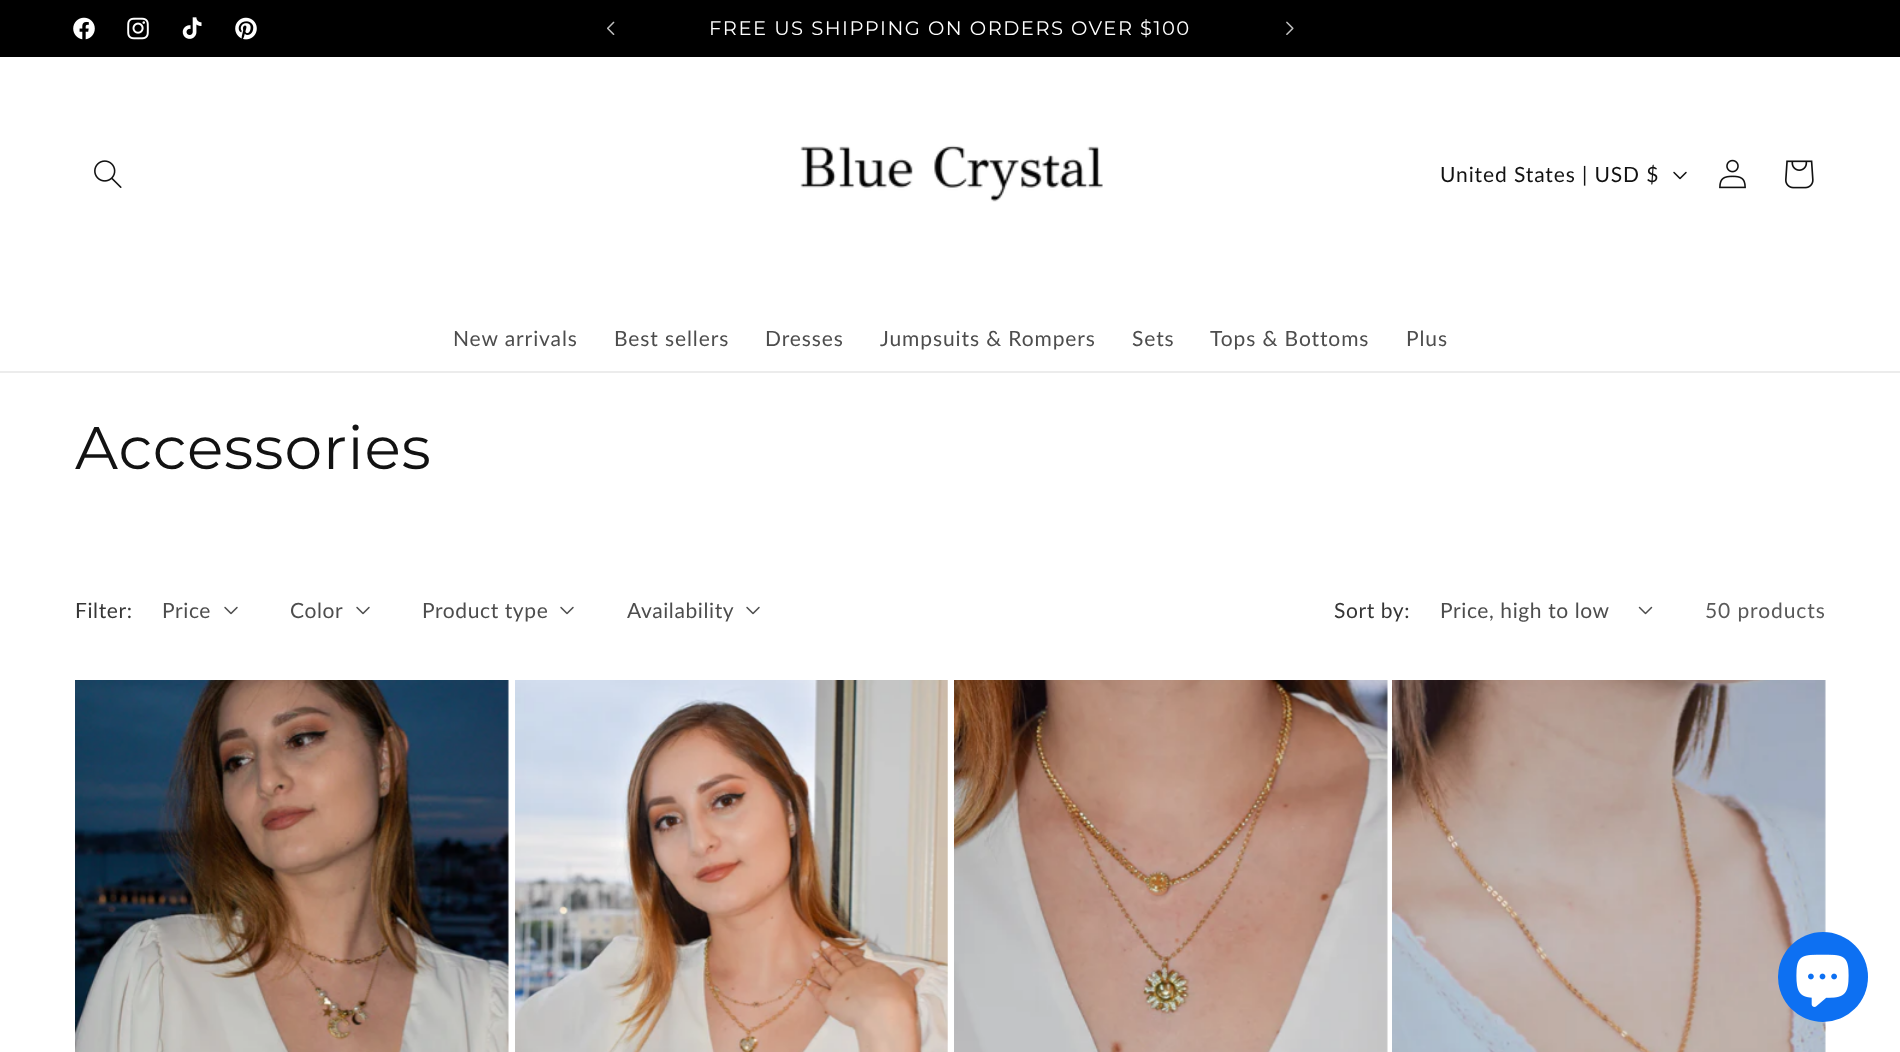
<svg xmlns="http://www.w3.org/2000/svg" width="1900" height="1052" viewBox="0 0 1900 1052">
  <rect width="100%" height="100%" fill="#fff"/>
  <path d="M0 0h1900v57H0z" fill="#000"/>
  <image x="73" y="17" width="22" height="23" href="img/1.png"/>
  <image x="127" y="17" width="22" height="23" href="img/2.png"/>
  <image x="182" y="17" width="20" height="22" href="img/3.png"/>
  <image x="235" y="17" width="22" height="23" href="img/4.png"/>
  <image x="607" y="21" width="8" height="14" href="img/5.png"/>
  <image x="1286" y="21" width="8" height="14" href="img/6.png"/>
  <path d="M0 371h1900v2H0z" fill="#ececec"/>
  <image x="94" y="160" width="28" height="28" href="img/7.png"/>
  <image x="800" y="145" width="303" height="57" href="img/8.png"/>
  <image x="1673" y="171" width="14" height="9" href="img/9.png"/>
  <image x="1719" y="159" width="27" height="30" href="img/10.png"/>
  <image x="1785" y="160" width="29" height="29" href="img/11.png"/>
  <image x="224" y="606" width="14" height="9" href="img/12.png"/>
  <image x="356" y="606" width="14" height="9" href="img/12.png"/>
  <image x="560" y="606" width="14" height="9" href="img/12.png"/>
  <image x="746" y="606" width="14" height="9" href="img/12.png"/>
  <image x="1638" y="606" width="15" height="9" href="img/13.png"/>
  <image x="75" y="680" width="434" height="372" href="img/14.png"/>
  <image x="515" y="680" width="433" height="372" href="img/15.png"/>
  <image x="954" y="680" width="434" height="372" href="img/16.png"/>
  <image x="1392" y="680" width="434" height="372" href="img/17.png"/>
  <circle cx="1823" cy="977" r="45" fill="#0d70f2"/>
  <image x="1796" y="954" width="53" height="53" href="img/18.png"/>
  <text x="709" y="35" font-family="Montserrat" font-size="19.5" letter-spacing="1.5" fill="#fff">FREE US SHIPPING ON ORDERS OVER $100</text>
  <text x="1440" y="182" font-family="Lato" font-size="21" letter-spacing="0.9" fill="#121212">United States | USD $</text>
  <g font-family="Lato" font-size="21" letter-spacing="0.9" fill="#4d4d4d">
    <text x="453" y="346">New arrivals</text>
    <text x="614" y="346">Best sellers</text>
    <text x="765" y="346">Dresses</text>
    <text x="880" y="346">Jumpsuits &amp; Rompers</text>
    <text x="1132" y="346">Sets</text>
    <text x="1210" y="346">Tops &amp; Bottoms</text>
    <text x="1406" y="346">Plus</text>
  </g>
  <text x="75" y="469" font-family="Montserrat" font-size="60" letter-spacing="0.9" fill="#121212">Accessories</text>
  <text x="75" y="618" font-family="Lato" font-size="21" letter-spacing="0.6" fill="#363636">Filter:</text>
  <g font-family="Lato" font-size="21" letter-spacing="0.6" fill="#4d4d4d">
    <text x="162" y="618">Price</text>
    <text x="290" y="618">Color</text>
    <text x="422" y="618">Product type</text>
    <text x="627" y="618">Availability</text>
  </g>
  <text x="1334" y="618" font-family="Lato" font-size="21" letter-spacing="0.6" fill="#363636">Sort by:</text>
  <text x="1440" y="618" font-family="Lato" font-size="21" letter-spacing="0.6" fill="#4d4d4d">Price, high to low</text>
  <text x="1705" y="618" font-family="Lato" font-size="21" letter-spacing="0.9" fill="#595959">50 products</text>
</svg>
